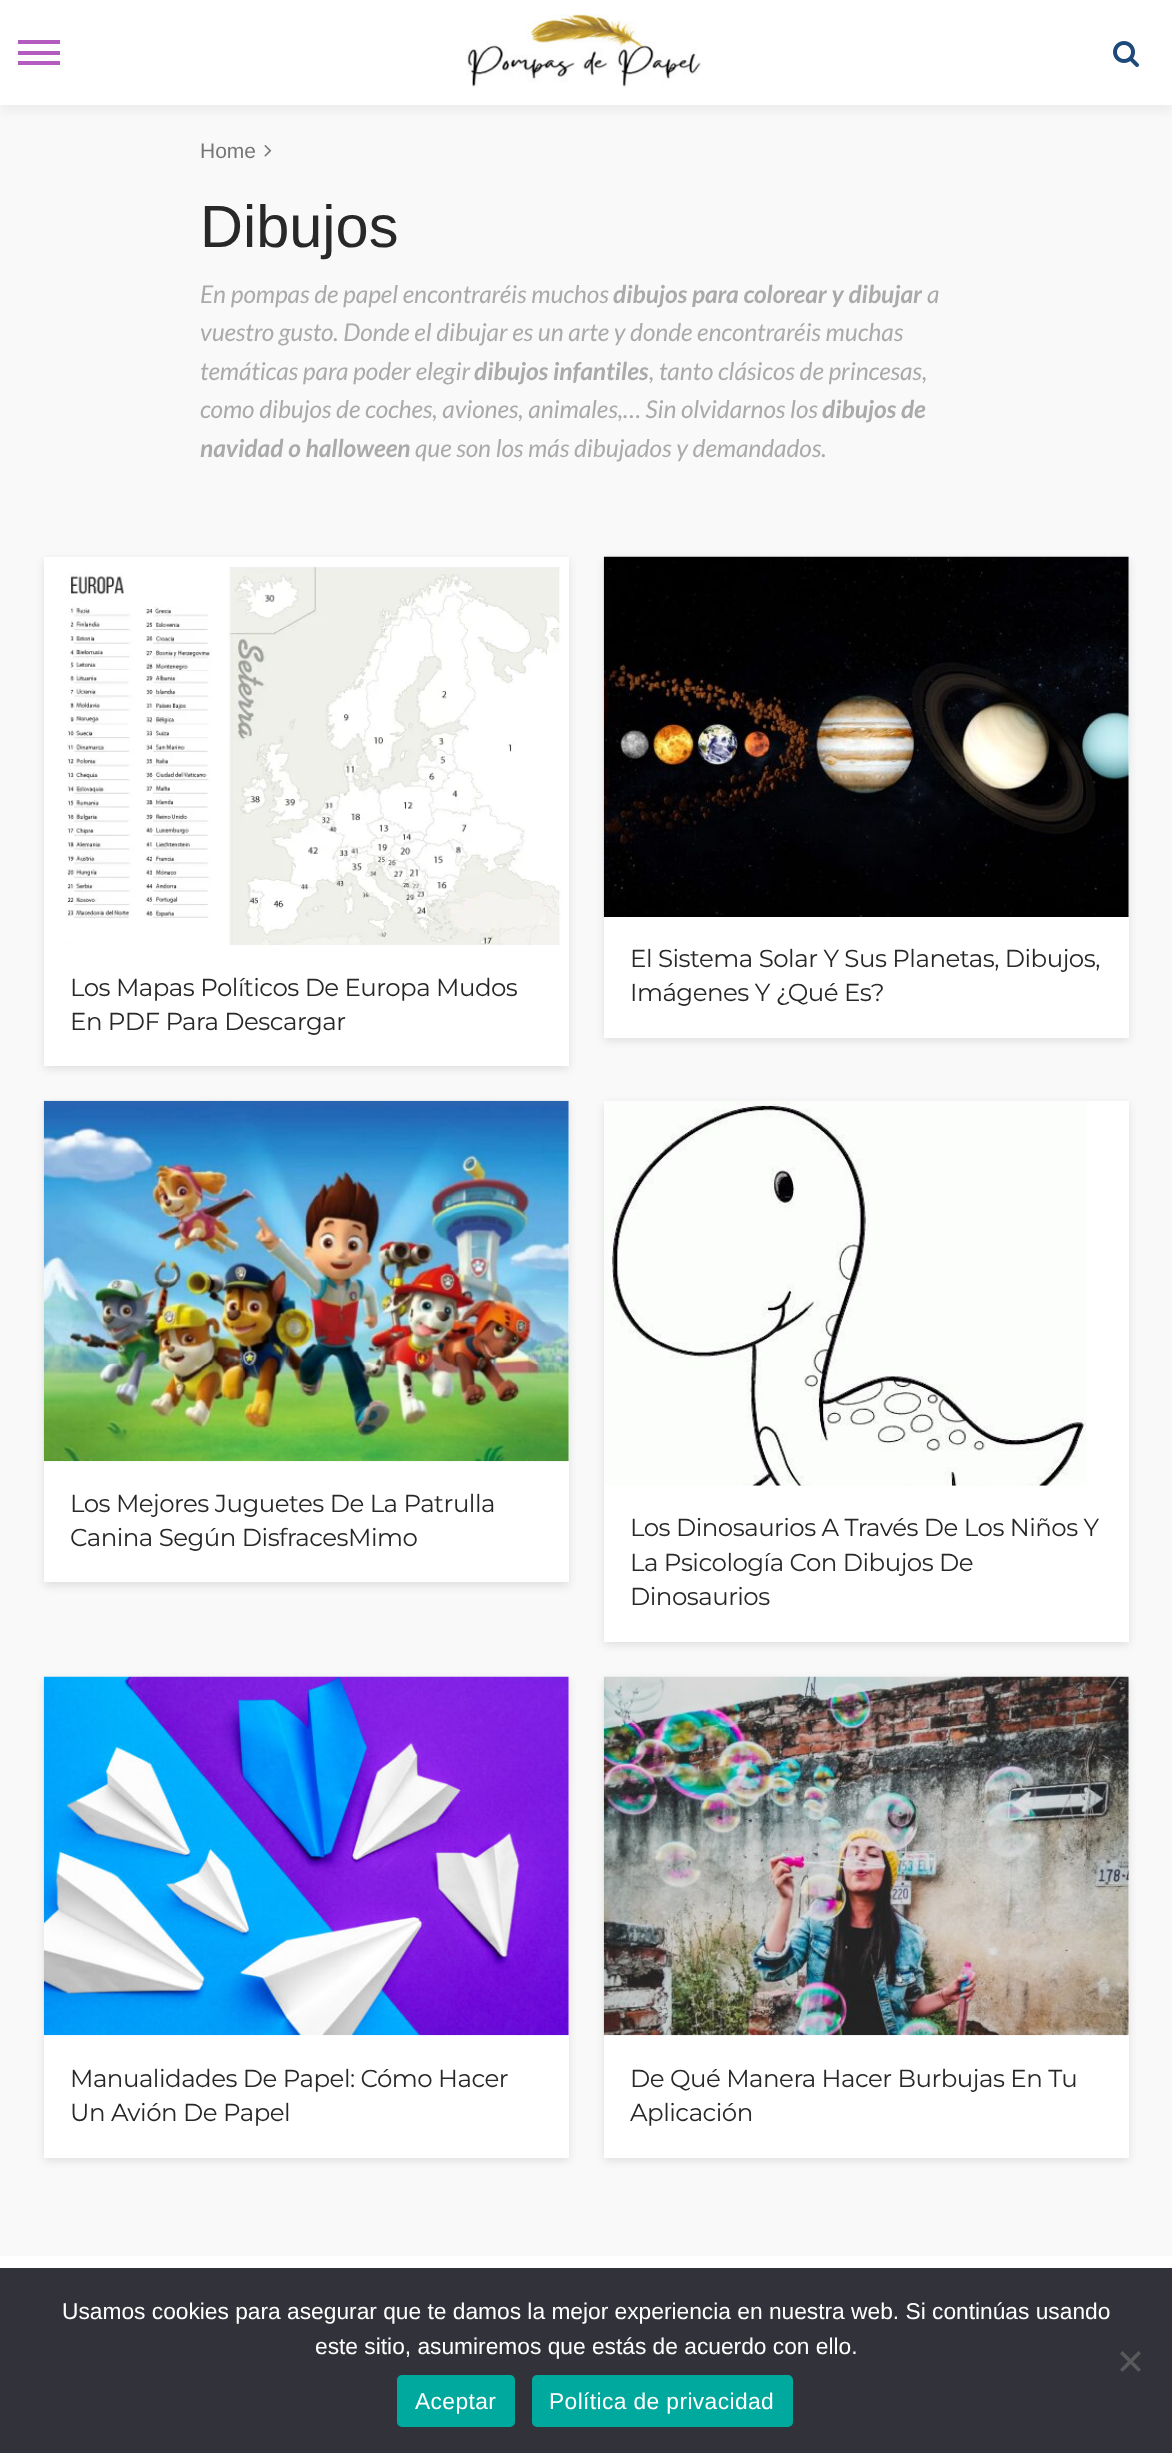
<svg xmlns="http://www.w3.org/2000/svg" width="1172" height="2453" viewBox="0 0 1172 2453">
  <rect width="100%" height="100%" fill="#f9f9f9"/>
  <path d="M0 7h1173v105H0z" fill="#1c1c1c0d" filter="blur(5px)"/>
  <path d="M0 0h1172v105H0z" fill="#fff"/>
  <path d="M18 51h42v4H18z" fill="#b35bbf"/>
  <path d="M18 40h42v4H18z" fill="#b35bbf"/>
  <path d="M18 61h42v4H18z" fill="#b35bbf"/>
  <image x="466" y="14" width="236" height="74" href="img/1.png"/>
  <image x="1113" y="41" width="26" height="26" href="img/2.png"/>
  <image x="264" y="145" width="8" height="12" href="img/3.png"/>
  <path d="M44 560h525v509H44z" fill="#0000001a" filter="blur(4.5px)"/>
  <path d="M44 557h525v509H44z" fill="#fff"/>
  <image x="65" y="566" width="496" height="379" href="img/4.png"/>
  <path d="M604 560h525v481H604z" fill="#0000001a" filter="blur(4.5px)"/>
  <path d="M604 557h525v481H604z" fill="#fff"/>
  <image x="603" y="556" width="526" height="361" href="img/5.png"/>
  <path d="M44 1104h525v482H44z" fill="#0000001a" filter="blur(4.5px)"/>
  <path d="M44 1101h525v481H44z" fill="#fff"/>
  <image x="43" y="1100" width="526" height="362" href="img/6.png"/>
  <path d="M604 1104h525v541H604z" fill="#0000001a" filter="blur(4.5px)"/>
  <path d="M604 1101h525v541H604z" fill="#fff"/>
  <image x="604" y="1101" width="483" height="385" href="img/7.png"/>
  <path d="M44 1680h525v481H44z" fill="#0000001a" filter="blur(4.5px)"/>
  <path d="M44 1677h525v481H44z" fill="#fff"/>
  <image x="43" y="1676" width="526" height="360" href="img/8.png"/>
  <path d="M604 1680h525v481H604z" fill="#0000001a" filter="blur(4.5px)"/>
  <path d="M604 1677h525v481H604z" fill="#fff"/>
  <image x="603" y="1676" width="526" height="360" href="img/9.png"/>
  <path d="M0 2256h1172v12H0z" fill="#fff"/>
  <path d="M0 2268h1172v185H0z" fill="#32323a"/>
  <path d="M1138.5 2351L1141 2353.5L1122.5 2372L1120 2369.5Z" fill="#59595d"/>
  <path d="M1120 2353.5L1122.5 2351L1141 2369.5L1138.5 2372Z" fill="#59595d"/>
  <rect x="397" y="2375" width="118" height="52" rx="5" fill="#00a99d"/>
  <rect x="532" y="2375" width="261" height="52" rx="5" fill="#00a99d"/>
  <text x="200" y="158" font-family="Liberation Sans" font-size="21" fill="#777">Home</text>
  <text x="200" y="247" font-family="Liberation Sans" font-size="59.5" fill="#282828">Dibujos</text>
  <text x="200" y="303" font-family="Lato" font-size="24.5" font-style="italic" fill="#aaa">En pompas de papel encontraréis muchos</text>
  <text x="613" y="303" font-family="Lato" font-size="24.5" font-weight="bold" font-style="italic" fill="#aaa">dibujos para colorear y dibujar</text>
  <g font-family="Lato" font-size="24.5" font-style="italic" fill="#aaa">
    <text x="927" y="303">a</text>
    <text x="200" y="341">vuestro gusto. Donde el dibujar es un arte y donde encontraréis muchas</text>
    <text x="200" y="380">temáticas para poder elegir</text>
  </g>
  <text x="474" y="380" font-family="Lato" font-size="24.5" font-weight="bold" font-style="italic" fill="#aaa">dibujos infantiles</text>
  <g font-family="Lato" font-size="24.5" font-style="italic" fill="#aaa">
    <text x="649" y="380">, tanto clásicos de princesas,</text>
    <text x="200" y="418">como dibujos de coches, aviones, animales,… Sin olvidarnos los</text>
  </g>
  <g font-family="Lato" font-size="24.5" font-weight="bold" font-style="italic" fill="#aaa">
    <text x="822" y="418">dibujos de</text>
    <text x="200" y="457">navidad o halloween</text>
  </g>
  <text x="415" y="457" font-family="Lato" font-size="24.5" font-style="italic" fill="#aaa">que son los más dibujados y demandados.</text>
  <g font-family="Montserrat" font-size="24.5" letter-spacing="-0.5" fill="#282828">
    <text x="70" y="996">Los Mapas Políticos De Europa Mudos</text>
    <text x="70" y="1030">En PDF Para Descargar</text>
    <text x="630" y="967">El Sistema Solar Y Sus Planetas, Dibujos,</text>
    <text x="630" y="1001">Imágenes Y ¿Qué Es?</text>
    <text x="70" y="1512">Los Mejores Juguetes De La Patrulla</text>
    <text x="70" y="1546">Canina Según DisfracesMimo</text>
    <text x="630" y="1536">Los Dinosaurios A Través De Los Niños Y</text>
    <text x="630" y="1571">La Psicología Con Dibujos De</text>
    <text x="630" y="1605">Dinosaurios</text>
    <text x="70" y="2087">Manualidades De Papel: Cómo Hacer</text>
    <text x="70" y="2121">Un Avión De Papel</text>
    <text x="630" y="2087">De Qué Manera Hacer Burbujas En Tu</text>
    <text x="630" y="2121">Aplicación</text>
  </g>
  <g font-family="Liberation Sans" font-size="22.75" fill="#fff">
    <text x="62" y="2319">Usamos cookies para asegurar que te damos la mejor experiencia en nuestra web. Si continúas usando</text>
    <text x="315" y="2354">este sitio, asumiremos que estás de acuerdo con ello.</text>
  </g>
  <g font-family="Liberation Sans" font-size="22.75" letter-spacing="0.4" fill="#fff">
    <text x="415" y="2409">Aceptar</text>
    <text x="549" y="2409">Política de privacidad</text>
  </g>
</svg>
